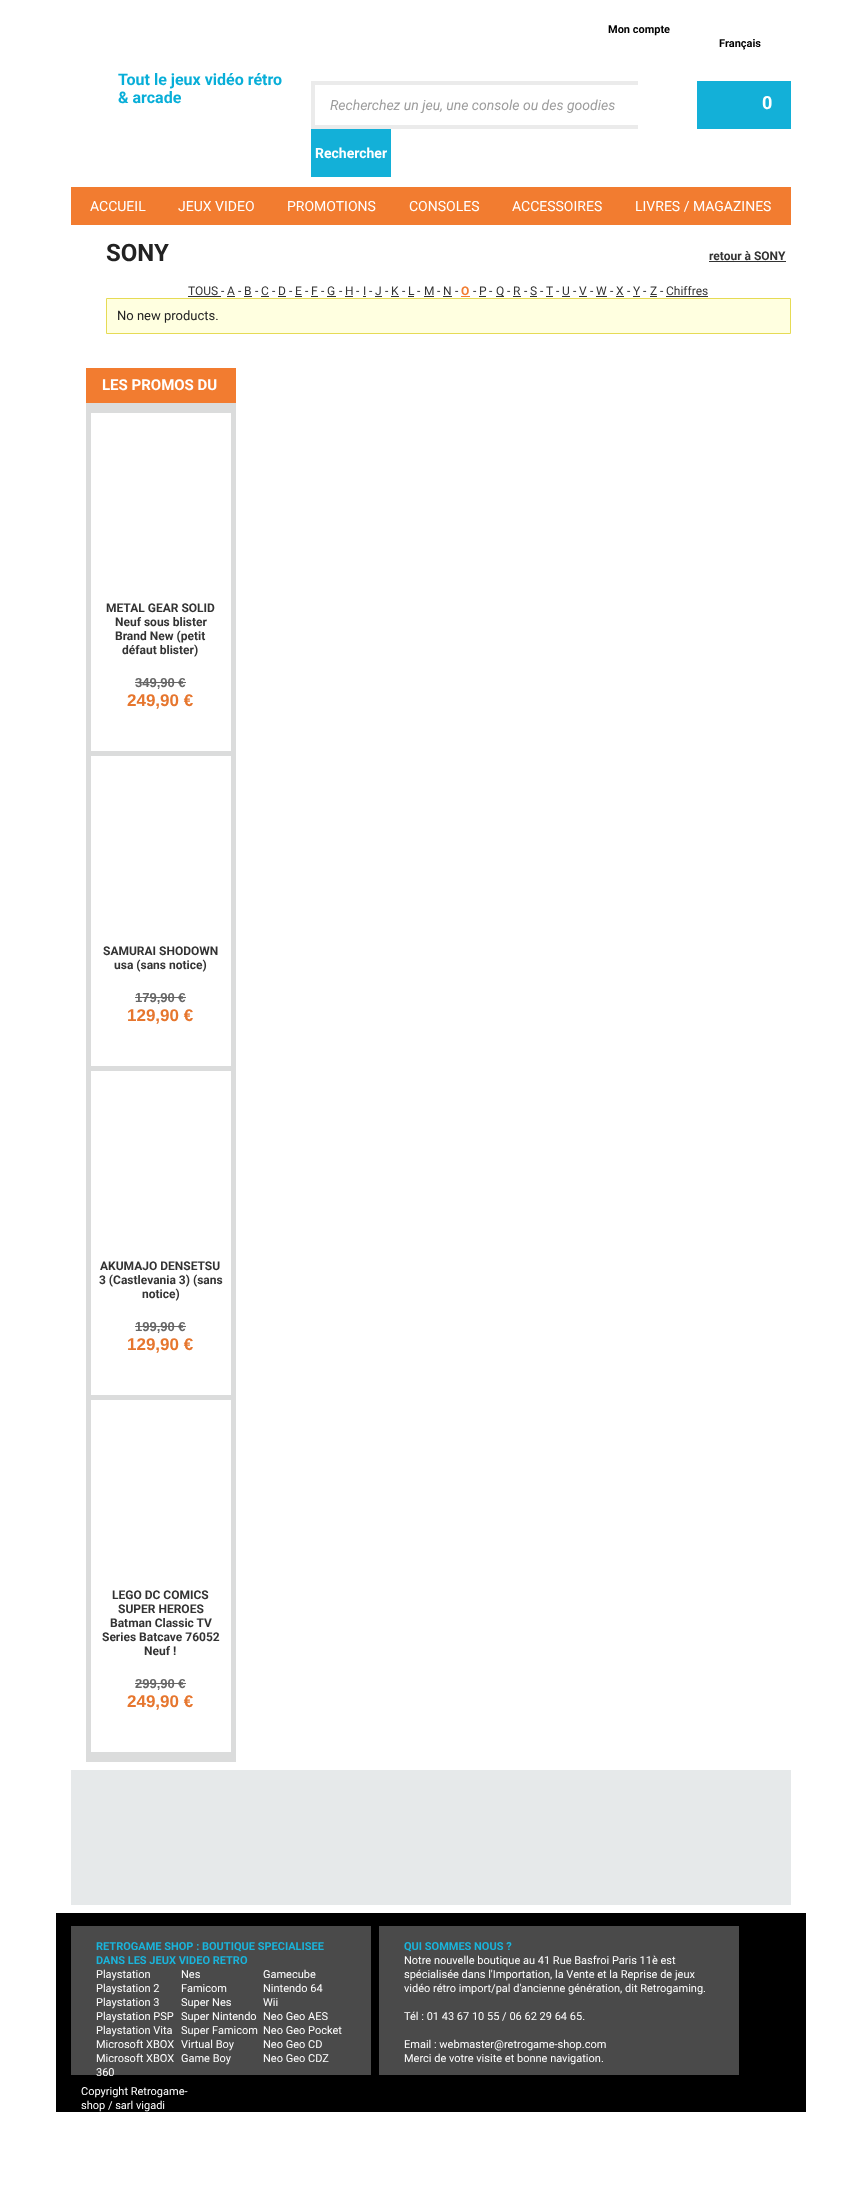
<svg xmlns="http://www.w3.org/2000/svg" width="861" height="2191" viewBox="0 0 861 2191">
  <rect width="100%" height="100%" fill="#fff"/>
  <path d="M311 81h327v4H311z" fill="#ebebeb"/>
  <path d="M311 125h327v4H311z" fill="#ebebeb"/>
  <path d="M311 81h4v48H311z" fill="#ebebeb"/>
  <path d="M311 129h80v48H311z" fill="#13b0d8"/>
  <path d="M697 81h94v48H697z" fill="#13b0d8"/>
  <path d="M71 187h720v38H71z" fill="#f27c30"/>
  <path d="M188 296h33v1H188z" fill="#333"/>
  <path d="M227 296h8v1H227z" fill="#333"/>
  <path d="M244 296h8v1H244z" fill="#333"/>
  <path d="M261 296h8v1H261z" fill="#333"/>
  <path d="M278 296h8v1H278z" fill="#333"/>
  <path d="M295 296h7v1H295z" fill="#333"/>
  <path d="M311 296h7v1H311z" fill="#333"/>
  <path d="M327 296h9v1H327z" fill="#333"/>
  <path d="M345 296h8v1H345z" fill="#333"/>
  <path d="M363 296h3v1H363z" fill="#333"/>
  <path d="M375 296h7v1H375z" fill="#333"/>
  <path d="M391 296h8v1H391z" fill="#333"/>
  <path d="M408 296h6v1H408z" fill="#333"/>
  <path d="M424 296h10v1H424z" fill="#333"/>
  <path d="M443 296h9v1H443z" fill="#333"/>
  <path d="M461 296h9v1H461z" fill="#f27c30"/>
  <path d="M479 296h7v1H479z" fill="#333"/>
  <path d="M496 296h8v1H496z" fill="#333"/>
  <path d="M513 296h8v1H513z" fill="#333"/>
  <path d="M530 296h7v1H530z" fill="#333"/>
  <path d="M546 296h7v1H546z" fill="#333"/>
  <path d="M562 296h8v1H562z" fill="#333"/>
  <path d="M579 296h8v1H579z" fill="#333"/>
  <path d="M596 296h11v1H596z" fill="#333"/>
  <path d="M616 296h8v1H616z" fill="#333"/>
  <path d="M633 296h7v1H633z" fill="#333"/>
  <path d="M650 296h7v1H650z" fill="#333"/>
  <path d="M666 296h42v1H666z" fill="#333"/>
  <path d="M106.5 298.5h684v35H106.5z" fill="#ffffe0" stroke="#e6db55"/>
  <path d="M709 261h77v1H709z" fill="#333"/>
  <path d="M86 368h150v35H86z" fill="#f27c30"/>
  <path d="M86 403h150v1359H86z" fill="#dbdcdc"/>
  <path d="M91 413h140v338H91z" fill="#fff"/>
  <path d="M135 682h51v1H135z" fill="#666"/>
  <path d="M91 756h140v310H91z" fill="#fff"/>
  <path d="M135 997h51v1H135z" fill="#666"/>
  <path d="M91 1071h140v324H91z" fill="#fff"/>
  <path d="M135 1326h51v1H135z" fill="#666"/>
  <path d="M91 1400h140v352H91z" fill="#fff"/>
  <path d="M135 1683h51v1H135z" fill="#666"/>
  <path d="M71 1770h720v135H71z" fill="#e6e9ea"/>
  <path d="M56 1913h750v199H56z" fill="#000"/>
  <path d="M71 1926h300v149H71z" fill="#4a4a4a"/>
  <path d="M379 1926h360v149H379z" fill="#4a4a4a"/>
  <g font-family="Roboto" font-size="16" font-weight="bold" fill="#08aed8">
    <text x="118" y="85">Tout le jeux vidéo rétro</text>
    <text x="118" y="103">&amp; arcade</text>
  </g>
  <g font-family="Roboto" font-size="11" font-weight="bold" fill="#000">
    <text x="608" y="33">Mon compte</text>
    <text x="719" y="47">Français</text>
  </g>
  <text x="330" y="110" font-family="Roboto" font-size="14" font-style="italic" fill="#9d9d9d">Recherchez un jeu, une console ou des goodies</text>
  <text x="315" y="158" font-family="Roboto" font-size="14" font-weight="bold" fill="#fff">Rechercher</text>
  <text x="762" y="109" font-family="Roboto" font-size="18" font-weight="bold" fill="#fff">0</text>
  <g font-family="Roboto" font-size="14" fill="#fff">
    <text x="90" y="211">ACCUEIL</text>
    <text x="178" y="211">JEUX VIDEO</text>
    <text x="287" y="211">PROMOTIONS</text>
    <text x="409" y="211">CONSOLES</text>
    <text x="512" y="211">ACCESSOIRES</text>
    <text x="635" y="211">LIVRES / MAGAZINES</text>
  </g>
  <text x="106" y="261" font-family="Roboto" font-size="24" font-weight="bold" fill="#222">SONY</text>
  <text x="188" y="295" font-family="Roboto" font-size="12" fill="#333">TOUS</text>
  <text x="221" y="295" font-family="Roboto" font-size="12" fill="#222">-</text>
  <text x="227" y="295" font-family="Roboto" font-size="12" fill="#333">A</text>
  <text x="238" y="295" font-family="Roboto" font-size="12" fill="#222">-</text>
  <text x="244" y="295" font-family="Roboto" font-size="12" fill="#333">B</text>
  <text x="255" y="295" font-family="Roboto" font-size="12" fill="#222">-</text>
  <text x="261" y="295" font-family="Roboto" font-size="12" fill="#333">C</text>
  <text x="272" y="295" font-family="Roboto" font-size="12" fill="#222">-</text>
  <text x="278" y="295" font-family="Roboto" font-size="12" fill="#333">D</text>
  <text x="289" y="295" font-family="Roboto" font-size="12" fill="#222">-</text>
  <text x="295" y="295" font-family="Roboto" font-size="12" fill="#333">E</text>
  <text x="305" y="295" font-family="Roboto" font-size="12" fill="#222">-</text>
  <text x="311" y="295" font-family="Roboto" font-size="12" fill="#333">F</text>
  <text x="321" y="295" font-family="Roboto" font-size="12" fill="#222">-</text>
  <text x="327" y="295" font-family="Roboto" font-size="12" fill="#333">G</text>
  <text x="339" y="295" font-family="Roboto" font-size="12" fill="#222">-</text>
  <text x="345" y="295" font-family="Roboto" font-size="12" fill="#333">H</text>
  <text x="356" y="295" font-family="Roboto" font-size="12" fill="#222">-</text>
  <text x="363" y="295" font-family="Roboto" font-size="12" fill="#333">I</text>
  <text x="369" y="295" font-family="Roboto" font-size="12" fill="#222">-</text>
  <text x="375" y="295" font-family="Roboto" font-size="12" fill="#333">J</text>
  <text x="385" y="295" font-family="Roboto" font-size="12" fill="#222">-</text>
  <text x="391" y="295" font-family="Roboto" font-size="12" fill="#333">K</text>
  <text x="402" y="295" font-family="Roboto" font-size="12" fill="#222">-</text>
  <text x="408" y="295" font-family="Roboto" font-size="12" fill="#333">L</text>
  <text x="417" y="295" font-family="Roboto" font-size="12" fill="#222">-</text>
  <text x="424" y="295" font-family="Roboto" font-size="12" fill="#333">M</text>
  <text x="437" y="295" font-family="Roboto" font-size="12" fill="#222">-</text>
  <text x="443" y="295" font-family="Roboto" font-size="12" fill="#333">N</text>
  <text x="455" y="295" font-family="Roboto" font-size="12" fill="#222">-</text>
  <text x="461" y="295" font-family="Roboto" font-size="12" font-weight="bold" fill="#f27c30">O</text>
  <text x="473" y="295" font-family="Roboto" font-size="12" fill="#222">-</text>
  <text x="479" y="295" font-family="Roboto" font-size="12" fill="#333">P</text>
  <text x="489" y="295" font-family="Roboto" font-size="12" fill="#222">-</text>
  <text x="496" y="295" font-family="Roboto" font-size="12" fill="#333">Q</text>
  <text x="507" y="295" font-family="Roboto" font-size="12" fill="#222">-</text>
  <text x="513" y="295" font-family="Roboto" font-size="12" fill="#333">R</text>
  <text x="524" y="295" font-family="Roboto" font-size="12" fill="#222">-</text>
  <text x="530" y="295" font-family="Roboto" font-size="12" fill="#333">S</text>
  <text x="540" y="295" font-family="Roboto" font-size="12" fill="#222">-</text>
  <text x="546" y="295" font-family="Roboto" font-size="12" fill="#333">T</text>
  <text x="556" y="295" font-family="Roboto" font-size="12" fill="#222">-</text>
  <text x="562" y="295" font-family="Roboto" font-size="12" fill="#333">U</text>
  <text x="573" y="295" font-family="Roboto" font-size="12" fill="#222">-</text>
  <text x="579" y="295" font-family="Roboto" font-size="12" fill="#333">V</text>
  <text x="590" y="295" font-family="Roboto" font-size="12" fill="#222">-</text>
  <text x="596" y="295" font-family="Roboto" font-size="12" fill="#333">W</text>
  <text x="610" y="295" font-family="Roboto" font-size="12" fill="#222">-</text>
  <text x="616" y="295" font-family="Roboto" font-size="12" fill="#333">X</text>
  <text x="627" y="295" font-family="Roboto" font-size="12" fill="#222">-</text>
  <text x="633" y="295" font-family="Roboto" font-size="12" fill="#333">Y</text>
  <text x="643" y="295" font-family="Roboto" font-size="12" fill="#222">-</text>
  <text x="650" y="295" font-family="Roboto" font-size="12" fill="#333">Z</text>
  <text x="660" y="295" font-family="Roboto" font-size="12" fill="#222">-</text>
  <text x="666" y="295" font-family="Roboto" font-size="12" fill="#333">Chiffres</text>
  <text x="117" y="320" font-family="Roboto" font-size="13" fill="#222">No new products.</text>
  <text x="709" y="260" font-family="Roboto" font-size="12" font-weight="bold" fill="#333">retour à SONY</text>
  <text x="102" y="390" font-family="Roboto" font-size="15" font-weight="bold" fill="#fff">LES PROMOS DU</text>
  <g font-family="Roboto" font-size="12" font-weight="bold" fill="#333">
    <text x="106" y="612">METAL GEAR SOLID</text>
    <text x="115" y="626">Neuf sous blister</text>
    <text x="115" y="640">Brand New (petit</text>
    <text x="122" y="654">défaut blister)</text>
  </g>
  <text x="135" y="687" font-family="Liberation Sans" font-size="13" font-weight="bold" fill="#666">349,90 €</text>
  <text x="127" y="706" font-family="Liberation Sans" font-size="17" font-weight="bold" fill="#e6762e">249,90 €</text>
  <g font-family="Roboto" font-size="12" font-weight="bold" fill="#333">
    <text x="103" y="955">SAMURAI SHODOWN</text>
    <text x="114" y="969">usa (sans notice)</text>
  </g>
  <text x="135" y="1002" font-family="Liberation Sans" font-size="13" font-weight="bold" fill="#666">179,90 €</text>
  <text x="127" y="1021" font-family="Liberation Sans" font-size="17" font-weight="bold" fill="#e6762e">129,90 €</text>
  <g font-family="Roboto" font-size="12" font-weight="bold" fill="#333">
    <text x="100" y="1270">AKUMAJO DENSETSU</text>
    <text x="99" y="1284">3 (Castlevania 3) (sans</text>
    <text x="142" y="1298">notice)</text>
  </g>
  <text x="135" y="1331" font-family="Liberation Sans" font-size="13" font-weight="bold" fill="#666">199,90 €</text>
  <text x="127" y="1350" font-family="Liberation Sans" font-size="17" font-weight="bold" fill="#e6762e">129,90 €</text>
  <g font-family="Roboto" font-size="12" font-weight="bold" fill="#333">
    <text x="112" y="1599">LEGO DC COMICS</text>
    <text x="118" y="1613">SUPER HEROES</text>
    <text x="110" y="1627">Batman Classic TV</text>
    <text x="102" y="1641">Series Batcave 76052</text>
    <text x="144" y="1655">Neuf !</text>
  </g>
  <text x="135" y="1688" font-family="Liberation Sans" font-size="13" font-weight="bold" fill="#666">299,90 €</text>
  <text x="127" y="1707" font-family="Liberation Sans" font-size="17" font-weight="bold" fill="#e6762e">249,90 €</text>
  <g font-family="Roboto" font-size="11" font-weight="bold" fill="#1ab4db">
    <text x="96" y="1950">RETROGAME SHOP : BOUTIQUE SPECIALISEE</text>
    <text x="96" y="1964">DANS LES JEUX VIDEO RETRO</text>
  </g>
  <g font-family="Roboto" font-size="11" fill="#fff">
    <text x="96" y="1978">Playstation</text>
    <text x="96" y="1992">Playstation 2</text>
    <text x="96" y="2006">Playstation 3</text>
    <text x="96" y="2020">Playstation PSP</text>
    <text x="96" y="2034">Playstation Vita</text>
    <text x="96" y="2048">Microsoft XBOX</text>
    <text x="96" y="2062">Microsoft XBOX</text>
    <text x="96" y="2076">360</text>
    <text x="181" y="1978">Nes</text>
    <text x="181" y="1992">Famicom</text>
    <text x="181" y="2006">Super Nes</text>
    <text x="181" y="2020">Super Nintendo</text>
    <text x="181" y="2034">Super Famicom</text>
    <text x="181" y="2048">Virtual Boy</text>
    <text x="181" y="2062">Game Boy</text>
    <text x="263" y="1978">Gamecube</text>
    <text x="263" y="1992">Nintendo 64</text>
    <text x="263" y="2006">Wii</text>
    <text x="263" y="2020">Neo Geo AES</text>
    <text x="263" y="2034">Neo Geo Pocket</text>
    <text x="263" y="2048">Neo Geo CD</text>
    <text x="263" y="2062">Neo Geo CDZ</text>
  </g>
  <text x="404" y="1950" font-family="Roboto" font-size="11" font-weight="bold" fill="#1ab4db">QUI SOMMES NOUS ?</text>
  <g font-family="Roboto" font-size="11" fill="#fff">
    <text x="404" y="1964">Notre nouvelle boutique au 41 Rue Basfroi Paris 11è est</text>
    <text x="404" y="1978">spécialisée dans l'Importation, la Vente et la Reprise de jeux</text>
    <text x="404" y="1992">vidéo rétro import/pal d'ancienne génération, dit Retrogaming.</text>
    <text x="404" y="2020">Tél : 01 43 67 10 55 / 06 62 29 64 65.</text>
    <text x="404" y="2048">Email : webmaster@retrogame-shop.com</text>
    <text x="404" y="2062">Merci de votre visite et bonne navigation.</text>
    <text x="81" y="2095">Copyright Retrogame-</text>
    <text x="81" y="2109">shop / sarl vigadi</text>
  </g>
</svg>
